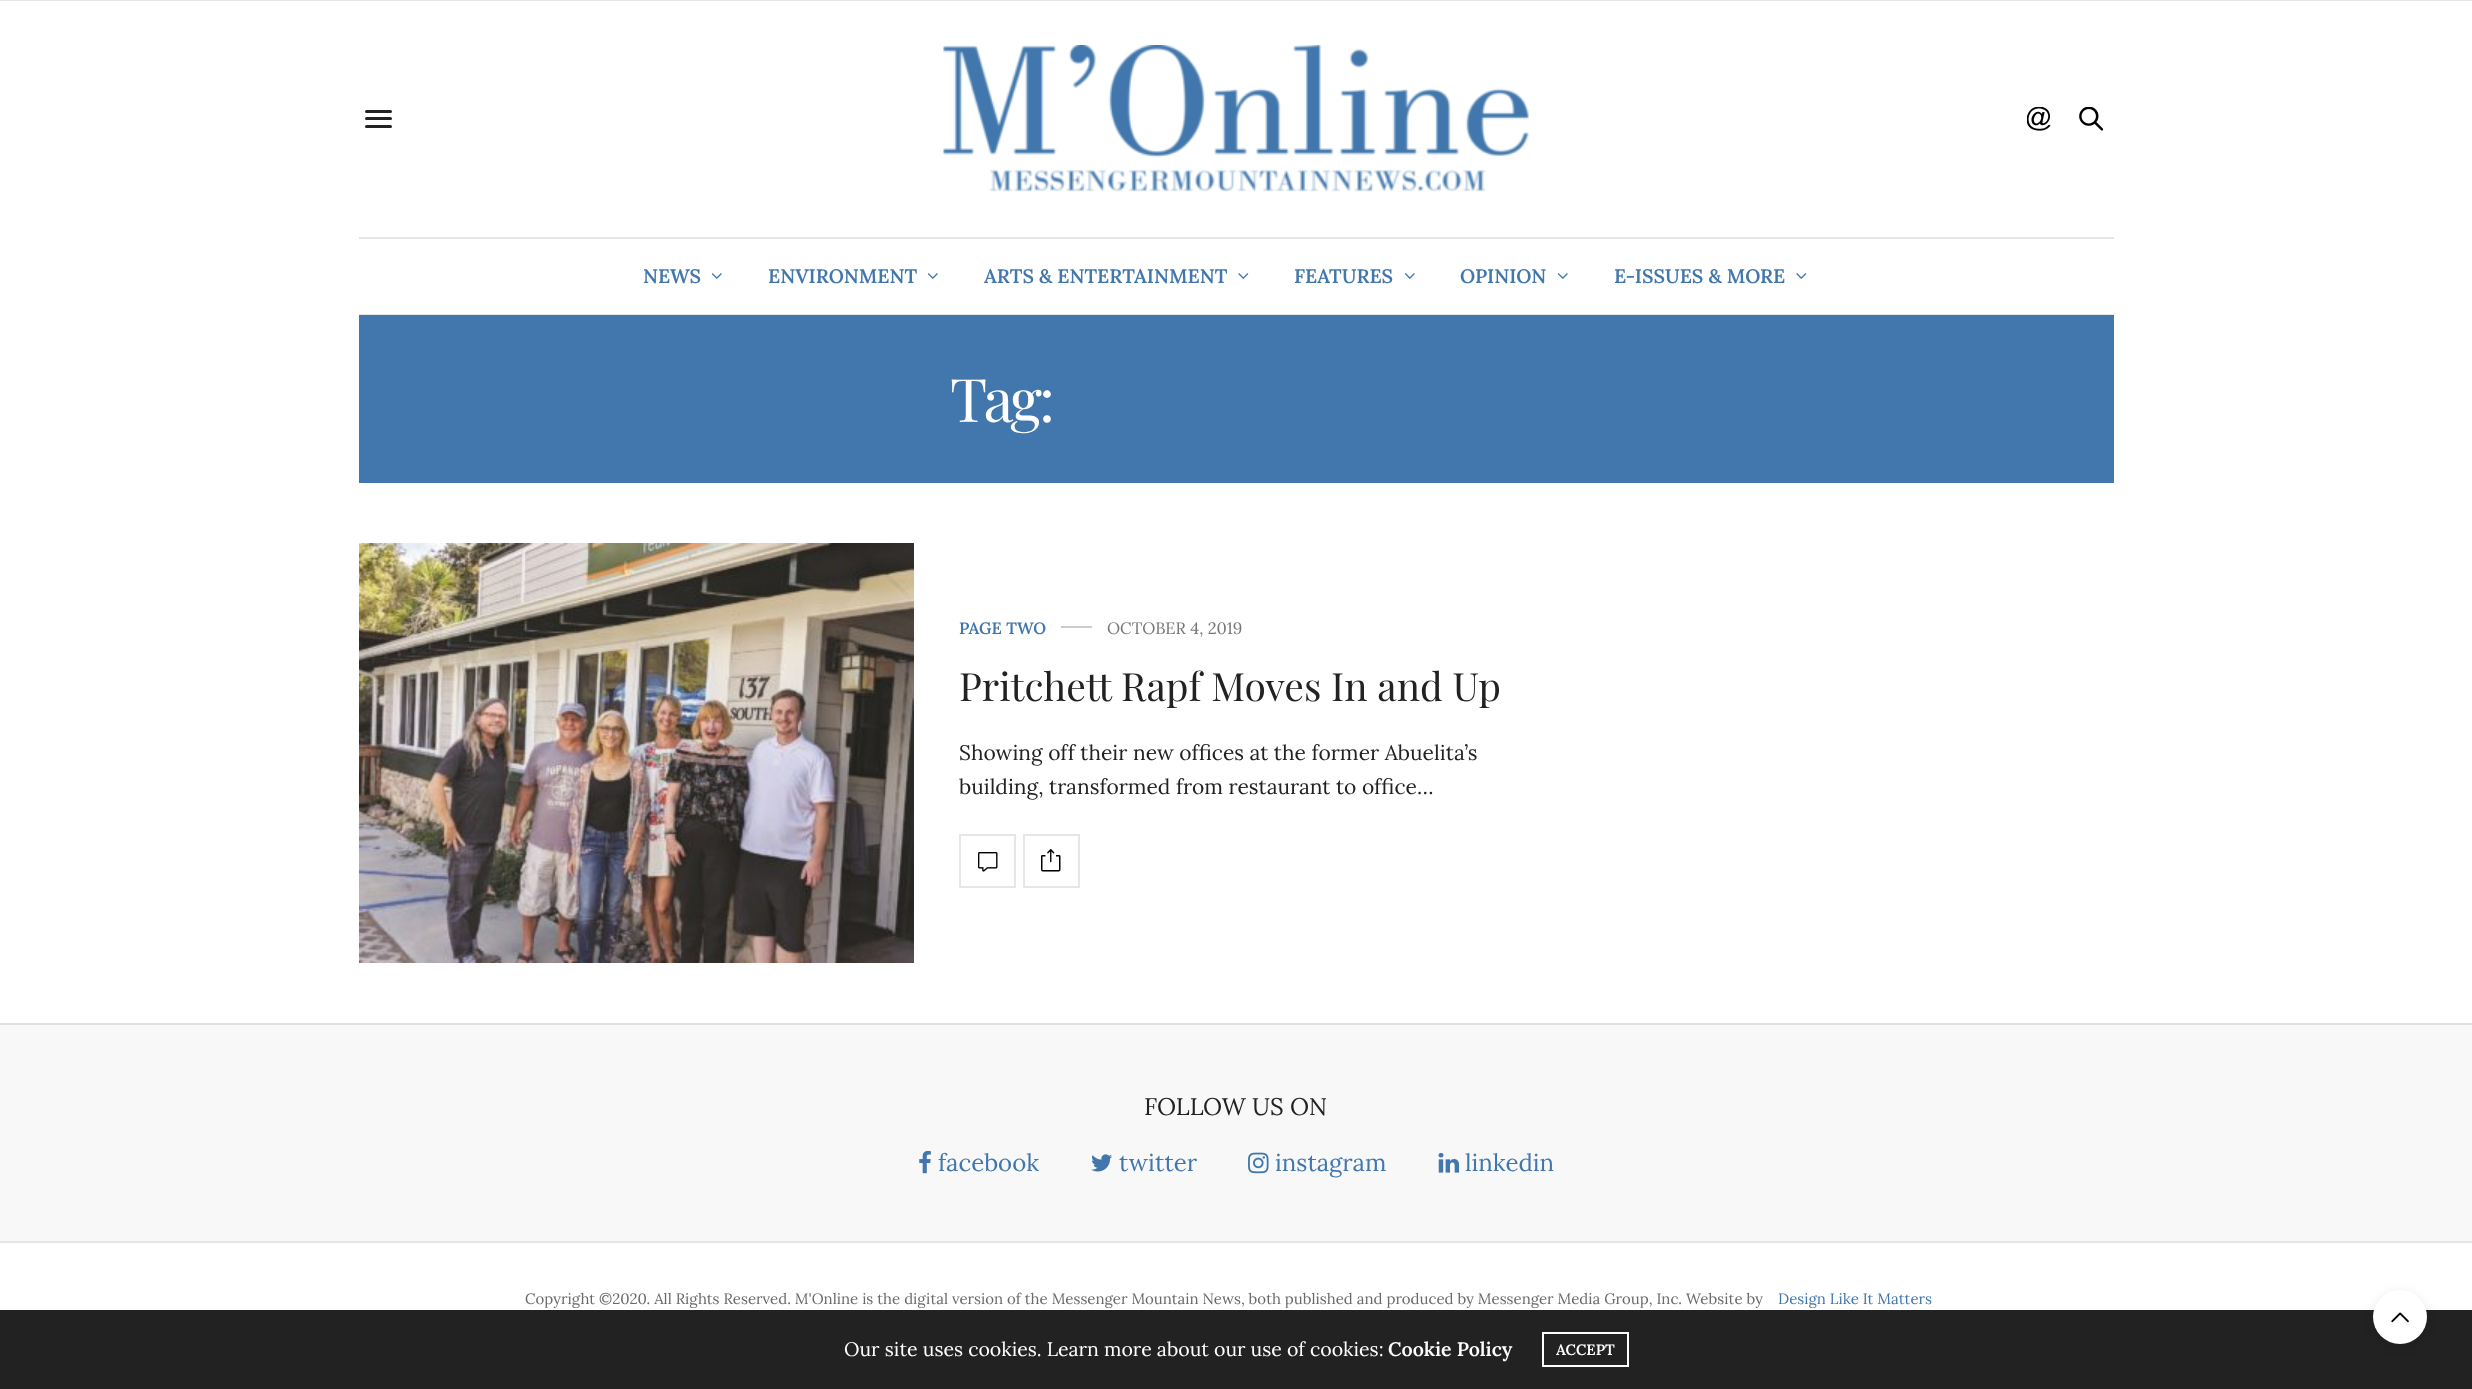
<svg xmlns="http://www.w3.org/2000/svg" width="2472" height="1389" viewBox="0 0 2472 1389">
  <rect width="100%" height="100%" fill="#fff"/>
  <path d="M0 0h2472v1H0z" fill="#e6e6e6"/>
  <path d="M359 237h1755v2H359z" fill="#e6e6e6"/>
  <rect x="365" y="110" width="27" height="3" rx="1.5" fill="#222"/>
  <rect x="365" y="117" width="27" height="3" rx="1.5" fill="#222"/>
  <rect x="365" y="125" width="27" height="3" rx="1.5" fill="#222"/>
  <image x="943" y="45" width="586" height="147" href="img/1.png"/>
  <image x="2027" y="107" width="24" height="24" href="img/2.png"/>
  <image x="2079" y="107" width="24" height="24" href="img/3.png"/>
  <path d="M359 314h1755v1H359z" fill="#e6e6e6"/>
  <image x="711" y="273" width="11" height="6" href="img/4.png"/>
  <image x="927" y="273" width="11" height="6" href="img/4.png"/>
  <image x="1238" y="273" width="11" height="6" href="img/5.png"/>
  <image x="1404" y="273" width="11" height="6" href="img/4.png"/>
  <image x="1557" y="273" width="11" height="6" href="img/4.png"/>
  <image x="1796" y="273" width="11" height="6" href="img/5.png"/>
  <path d="M359 315h1755v168H359z" fill="#4177ac"/>
  <image x="359" y="543" width="555" height="420" href="img/6.png"/>
  <path d="M1061 626h31v2H1061z" fill="#ccc"/>
  <path d="M960 835h55v52H960z" fill="none" stroke="#e6e6e6" stroke-width="2"/>
  <image x="978" y="852" width="20" height="20" href="img/7.png"/>
  <path d="M1024 835h55v52H1024z" fill="none" stroke="#e6e6e6" stroke-width="2"/>
  <image x="1041" y="849" width="20" height="23" href="img/8.png"/>
  <path d="M0 1025h2472v216H0z" fill="#f8f8f8"/>
  <path d="M0 1023h2472v2H0z" fill="#dfdfdf"/>
  <image x="919" y="1150" width="12" height="24" href="img/9.png"/>
  <image x="1091" y="1154" width="21" height="18" href="img/10.png"/>
  <image x="1248" y="1152" width="21" height="22" href="img/11.png"/>
  <image x="1438" y="1152" width="22" height="21" href="img/12.png"/>
  <path d="M0 1241h2472v2H0z" fill="#e6e6e6"/>
  <path d="M0 1310h2472v79H0z" fill="#222"/>
  <path d="M1543 1333h85v33H1543z" fill="none" stroke="#fff" stroke-width="2"/>
  <rect x="2373" y="1293" width="54" height="54" rx="27" fill="#0000001a" filter="blur(6px)"/>
  <circle cx="2400" cy="1317" r="27" fill="#fff"/>
  <image x="2391" y="1312" width="18" height="11" href="img/13.png"/>
  <g font-family="Lora" font-size="19.5" font-weight="600" fill="#4177ac">
    <text x="643" y="283">NEWS</text>
    <text x="768" y="283">ENVIRONMENT</text>
    <text x="984" y="283">ARTS &amp; ENTERTAINMENT</text>
    <text x="1294" y="283">FEATURES</text>
    <text x="1460" y="283">OPINION</text>
    <text x="1614" y="283">E-ISSUES &amp; MORE</text>
  </g>
  <text x="950" y="422" font-family="Playfair Display" font-size="60" letter-spacing="-3" fill="#fff">Tag:</text>
  <text x="959" y="634" font-family="Lora" font-size="16.5" font-weight="600" fill="#4177ac">PAGE TWO</text>
  <text x="1107" y="634" font-family="Lora" font-size="16.5" fill="#767676">OCTOBER 4, 2019</text>
  <text x="959" y="701" font-family="Playfair Display" font-size="39" fill="#222">Pritchett Rapf Moves In and Up</text>
  <g font-family="Lora" font-size="21" fill="#222">
    <text x="959" y="760">Showing off their new offices at the former Abuelita’s</text>
    <text x="959" y="794">building, transformed from restaurant to office…</text>
  </g>
  <text x="1144" y="1115" font-family="Lora" font-size="24" fill="#222">FOLLOW US ON</text>
  <g font-family="Lora" font-size="24" fill="#4177ac">
    <text x="938" y="1171">facebook</text>
    <text x="1119" y="1171">twitter</text>
    <text x="1275" y="1171">instagram</text>
    <text x="1465" y="1171">linkedin</text>
  </g>
  <text x="525" y="1304" font-family="Lora" font-size="15" fill="#6a6a6a">Copyright ©2020. All Rights Reserved. M'Online is the digital version of the Messenger Mountain News, both published and produced by Messenger Media Group, Inc. Website by</text>
  <text x="1778" y="1304" font-family="Lora" font-size="15" fill="#4177ac">Design Like It Matters</text>
  <text x="844" y="1356" font-family="Lora" font-size="19.5" fill="#fff">Our site uses cookies. Learn more about our use of cookies:</text>
  <text x="1388" y="1356" font-family="Lora" font-size="19.5" font-weight="600" fill="#fff">Cookie Policy</text>
  <text x="1556" y="1355" font-family="Lora" font-size="15" font-weight="600" fill="#fff">ACCEPT</text>
</svg>
